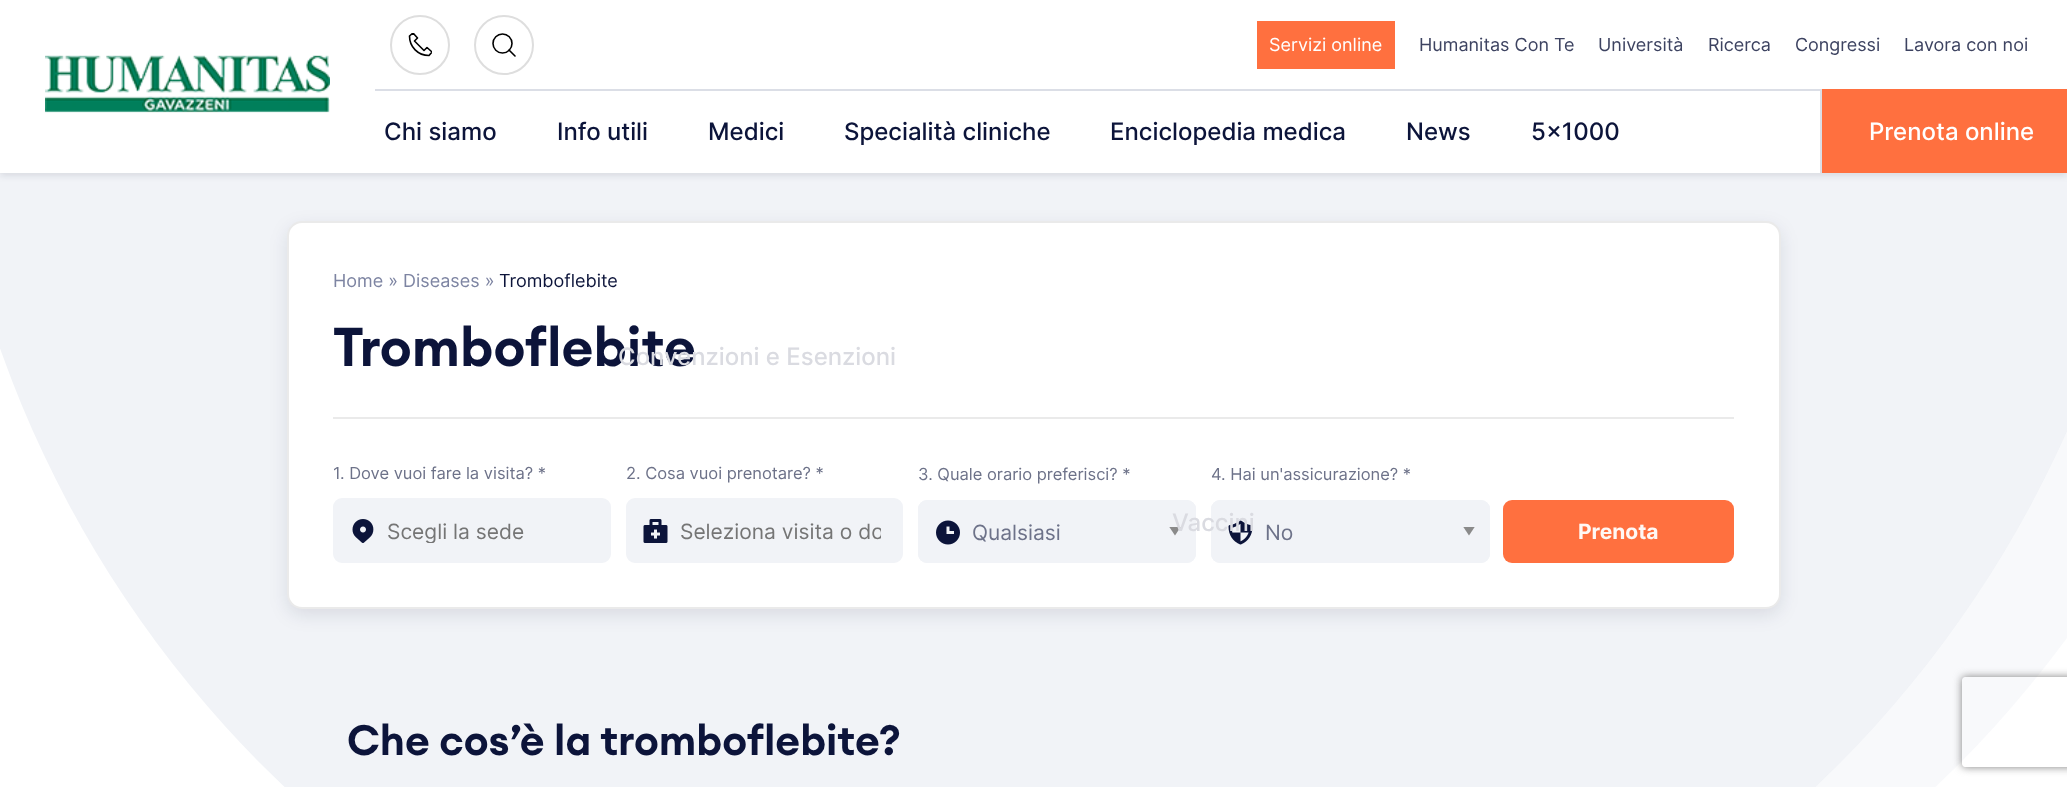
<svg xmlns="http://www.w3.org/2000/svg" width="2067" height="787" viewBox="0 0 2067 787">
  <defs>
    <clipPath id="clip1"><path d="M408 33h24v24H408z"/></clipPath>
    <clipPath id="clip2"><path d="M1169 527h13v9H1169z"/></clipPath>
    <clipPath id="clip3"><path d="M1463 527h13v9H1463z"/></clipPath>
    <clipPath id="clip4"><path d="M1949 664H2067V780H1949ZM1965 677H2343C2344.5 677 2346 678.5 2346 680V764C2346 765.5 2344.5 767 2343 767H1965C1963.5 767 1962 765.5 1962 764V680C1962 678.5 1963.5 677 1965 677Z" clip-rule="evenodd"/></clipPath>
    <clipPath id="clip5"><path d="M387 518h201v25H387z"/></clipPath>
    <clipPath id="clip6"><path d="M680 518h201v25H680z"/></clipPath>
  </defs>
  <rect width="100%" height="100%" fill="#fff"/>
  <image x="0" y="173" width="2067" height="614" href="img/2.png"/>
  <path d="M0 3h2067v173H0z" fill="#0c122d1a" filter="blur(3px)"/>
  <path d="M0 0h2067v173H0z" fill="#fff"/>
  <image x="45" y="55" width="285" height="58" href="img/1.png"/>
  <path d="M375 89h1445v2H375z" fill="#dbdee6"/>
  <circle cx="420" cy="45" r="29" fill="none" stroke="#dedede" stroke-width="2"/>
  <g clip-path="url(#clip1)">
    <path d="M427 47.5L424 50.5L414.5 41L417.5 38L413 33L409.5 36C409.5 47 418 55.5 429 55.5L432 52Z" fill="none" stroke="#000" stroke-width="1.6" stroke-linecap="round" stroke-linejoin="round"/>
  </g>
  <circle cx="504" cy="45" r="29" fill="none" stroke="#dedede" stroke-width="2"/>
  <circle cx="502.5" cy="43.5" r="9.5" fill="none" stroke="#000" stroke-width="1.6"/>
  <path d="M515 56L509 50" fill="none" stroke="#000" stroke-width="1.6" stroke-linecap="round" stroke-linejoin="round"/>
  <path d="M1257 21h138v48H1257z" fill="#ff703f"/>
  <path d="M1822 89h245v84H1822z" fill="#ff703f"/>
  <path d="M1820 89h2v84H1820z" fill="#dbdee6"/>
  <rect x="287" y="227" width="1494" height="388" rx="15" fill="#0c122d1a" filter="blur(9px)"/>
  <rect x="288" y="222" width="1492" height="386" rx="14" fill="#fff" stroke="#eaeaea" stroke-width="2"/>
  <path d="M333 417h1401v2H333z" fill="#eaeaea"/>
  <rect x="334" y="499" width="276" height="63" rx="8" fill="#f1f3f7" stroke="#f1f3f7" stroke-width="2"/>
  <image x="352" y="519" width="22" height="24" href="img/3.png"/>
  <rect x="627" y="499" width="275" height="63" rx="8" fill="#f1f3f7" stroke="#f1f3f7" stroke-width="2"/>
  <image x="643" y="519" width="25" height="24" href="img/4.png"/>
  <rect x="918" y="500" width="278" height="63" rx="9" fill="#f1f3f7"/>
  <g clip-path="url(#clip2)">
    <path d="M1169 526.5H1181L1175 535.5Z" fill="#8a8a8a"/>
  </g>
  <rect x="919" y="501" width="276" height="61" rx="8" fill="none" stroke="#f1f3f7" stroke-width="2"/>
  <image x="936" y="520" width="24" height="25" href="img/5.png"/>
  <rect x="1211" y="500" width="279" height="63" rx="9" fill="#f1f3f7"/>
  <g clip-path="url(#clip3)">
    <path d="M1463 526.5H1475L1469 535.5Z" fill="#8a8a8a"/>
  </g>
  <rect x="1212" y="501" width="277" height="61" rx="8" fill="none" stroke="#f1f3f7" stroke-width="2"/>
  <image x="1228" y="520" width="25" height="25" href="img/6.png"/>
  <rect x="1503" y="500" width="231" height="63" rx="9" fill="#ff703f"/>
  <g clip-path="url(#clip4)">
    <rect x="1962" y="677" width="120" height="90" rx="3" fill="#808080" filter="blur(4px)"/>
  </g>
  <text x="1269" y="51" font-family="Inter" font-size="18" fill="#fff">Servizi online</text>
  <g font-family="Inter" font-size="18" fill="#3d4361">
    <text x="1419" y="51">Humanitas Con Te</text>
    <text x="1598" y="51">Università</text>
    <text x="1708" y="51">Ricerca</text>
    <text x="1795" y="51">Congressi</text>
    <text x="1904" y="51">Lavora con noi</text>
  </g>
  <g font-family="Inter" font-size="24" font-weight="500" fill="#0c143a">
    <text x="384" y="140">Chi siamo</text>
    <text x="557" y="140">Info utili</text>
    <text x="708" y="140">Medici</text>
    <text x="844" y="140">Specialità cliniche</text>
    <text x="1110" y="140">Enciclopedia medica</text>
  </g>
  <text x="1172" y="531" font-family="Inter" font-size="24" font-weight="500" fill="#dadbe1">Vaccini</text>
  <g font-family="Inter" font-size="24" font-weight="500" fill="#0c143a">
    <text x="1406" y="140">News</text>
    <text x="1531" y="140">5×1000</text>
  </g>
  <text x="1869" y="140" font-family="Inter" font-size="24" font-weight="500" fill="#fff">Prenota online</text>
  <text x="333" y="287" font-family="Inter" font-size="18" fill="#7d84a2">Home » Diseases »</text>
  <text x="499" y="287" font-family="Inter" font-size="18" fill="#0c143a">Tromboflebite</text>
  <text x="333" y="366" font-family="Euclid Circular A" font-size="54" font-weight="600" fill="#0c143a">Tromboflebite</text>
  <text x="618" y="365" font-family="Inter" font-size="24" font-weight="500" fill="#dadbe1">Convenzioni e Esenzioni</text>
  <text x="333" y="479" font-family="Inter" font-size="16.5" fill="#6d7289">1. Dove vuoi fare la visita? *</text>
  <g clip-path="url(#clip5)">
    <text x="387" y="539" font-family="Inter" font-size="21" fill="#757575">Scegli la sede</text>
  </g>
  <text x="626" y="479" font-family="Inter" font-size="16.5" fill="#6d7289">2. Cosa vuoi prenotare? *</text>
  <g clip-path="url(#clip6)">
    <text x="680" y="539" font-family="Inter" font-size="21" fill="#757575">Seleziona visita o do</text>
  </g>
  <text x="918" y="480" font-family="Inter" font-size="16.5" fill="#6d7289">3. Quale orario preferisci? *</text>
  <text x="972" y="540" font-family="Inter" font-size="21" fill="#6d7289">Qualsiasi</text>
  <text x="1211" y="480" font-family="Inter" font-size="16.5" fill="#6d7289">4. Hai un'assicurazione? *</text>
  <text x="1265" y="540" font-family="Inter" font-size="21" fill="#6d7289">No</text>
  <text x="1578" y="539" font-family="Inter" font-size="21" font-weight="bold" fill="#fff8f5">Prenota</text>
  <text x="347" y="755" font-family="Euclid Circular A" font-size="42" font-weight="600" fill="#0c143a">Che cos’è la tromboflebite?</text>
</svg>
